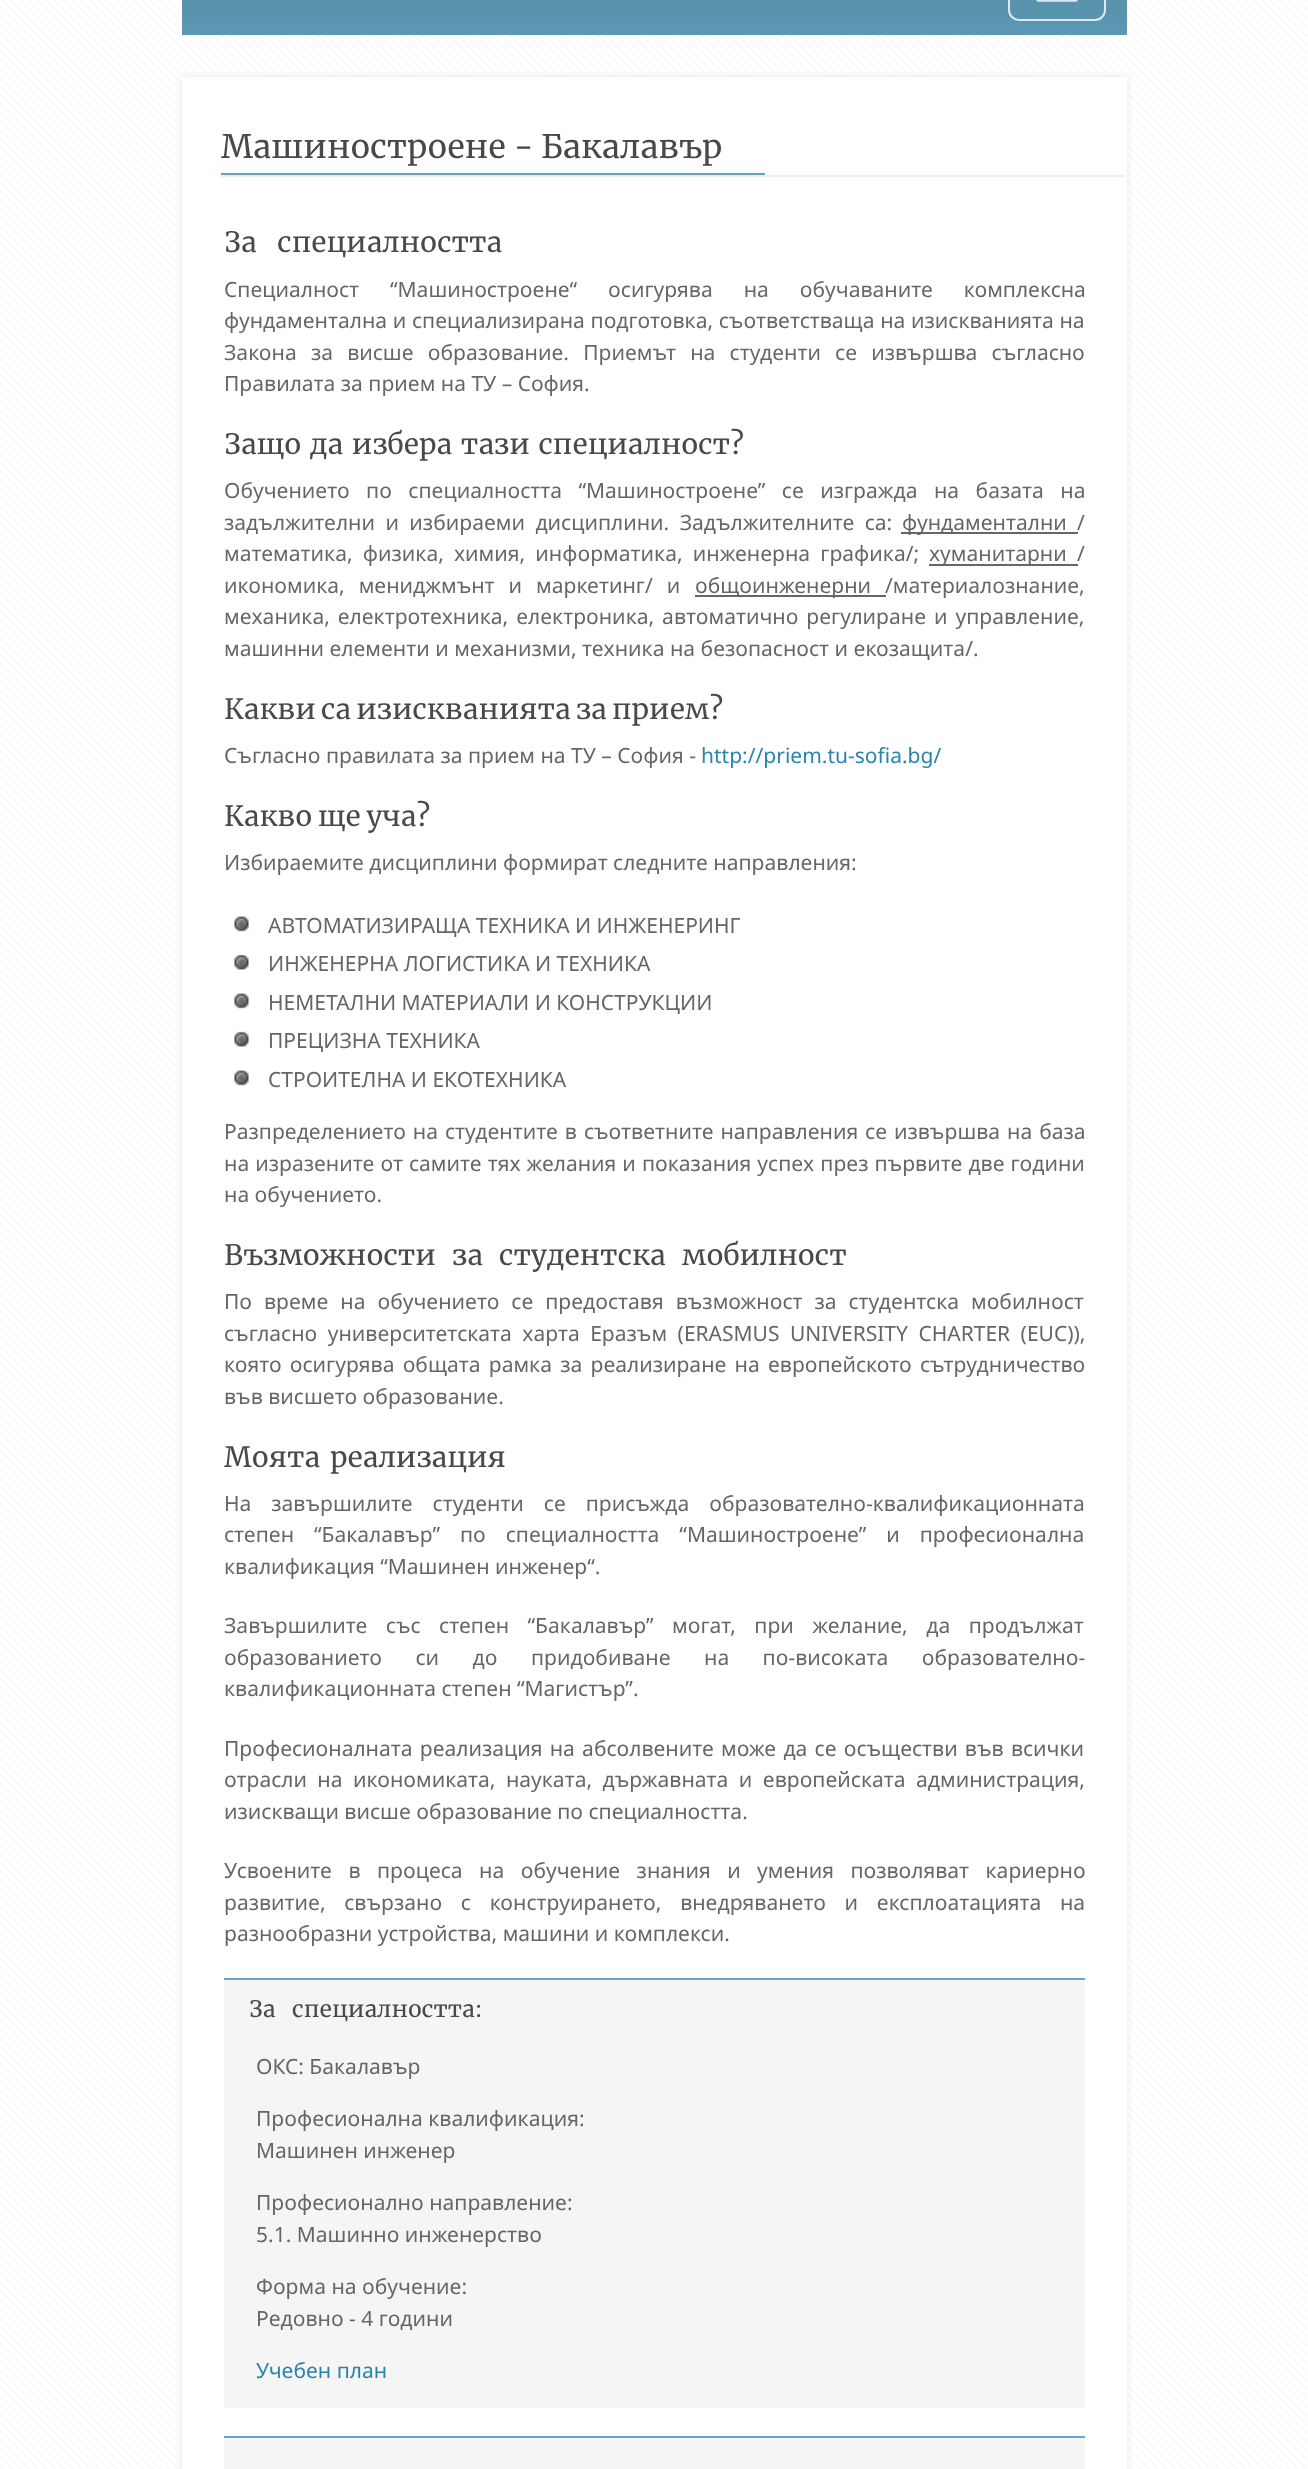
<svg xmlns="http://www.w3.org/2000/svg" width="1308" height="2469" viewBox="0 0 1308 2469">
  <defs>
    <linearGradient id="g1" gradientUnits="userSpaceOnUse" x1="655" y1="35" x2="655" y2="-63"><stop offset="0" stop-color="#5b98b4"/><stop offset="0.35" stop-color="#5892ac"/><stop offset="1" stop-color="#5187a0"/></linearGradient>
  </defs>
  <rect width="100%" height="100%" fill="#fff"/>
  <image x="0" y="0" width="1307" height="2469" href="img/1.png"/>
  <path d="M182 0h945v35H182z" fill="url(#g1)"/>
  <rect x="1009" y="-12" width="96" height="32" rx="10" fill="none" stroke="#ffffffcc" stroke-width="2"/>
  <path d="M1038-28H1076M1038-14H1076M1038 0H1076" fill="none" stroke="#dee9ee" stroke-width="3.5" stroke-linecap="round"/>
  <path d="M182 77h945v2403H182z" fill="#e5e5e5" filter="blur(3.5px)"/>
  <path d="M182 77h945v2392H182z" fill="#fff"/>
  <path d="M221 175h903v2H221z" fill="#ececec"/>
  <path d="M221 173h544v2H221z" fill="#65a2be"/>
  <path d="M901 532h177v2H901z" fill="#666"/>
  <path d="M929 564h149v2H929z" fill="#666"/>
  <path d="M695 595h191v2H695z" fill="#666"/>
  <image x="234" y="916" width="15" height="16" href="img/2.png"/>
  <image x="234" y="954" width="15" height="16" href="img/3.png"/>
  <image x="234" y="993" width="15" height="16" href="img/2.png"/>
  <image x="234" y="1031" width="15" height="16" href="img/3.png"/>
  <image x="234" y="1070" width="15" height="16" href="img/2.png"/>
  <path d="M224 1980h861v428H224z" fill="#f5f5f5"/>
  <path d="M224 1978h861v2H224z" fill="#64a5c4"/>
  <path d="M224 2438h861v31H224z" fill="#f5f5f5"/>
  <path d="M224 2436h861v2H224z" fill="#64a5c4"/>
  <text x="221" y="158" font-family="Merriweather" font-size="32.4" fill="#494949">Машиностроене - Бакалавър</text>
  <text x="224" y="252" word-spacing="14" font-family="Merriweather" font-size="28" fill="#494949">За специалността</text>
  <g font-family="Noto Sans" font-size="21" fill="#666">
    <text x="224" y="297" word-spacing="25.5">Специалност “Машиностроене“ осигурява на обучаваните комплексна</text>
    <text x="224" y="328" word-spacing="0.25">фундаментална и специализирана подготовка, съответстваща на изискванията на</text>
    <text x="224" y="360" word-spacing="8.75">Закона за висше образование. Приемът на студенти се извършва съгласно</text>
    <text x="224" y="391">Правилата за прием на ТУ – София.</text>
  </g>
  <text x="224" y="454" word-spacing="2" font-family="Merriweather" font-size="28" fill="#494949">Защо да избера тази специалност?</text>
  <g font-family="Noto Sans" font-size="21" fill="#666">
    <text x="224" y="498" word-spacing="11">Обучението по специалността “Машиностроене” се изгражда на базата на</text>
    <text x="224" y="530" word-spacing="5">задължителни и избираеми дисциплини. Задължителните са:</text>
    <text x="902" y="530">фундаментални</text>
    <text x="1077" y="530">/</text>
    <text x="224" y="561" word-spacing="4.75">математика, физика, химия, информатика, инженерна графика/;</text>
    <text x="929" y="561">хуманитарни</text>
    <text x="1077" y="561">/</text>
    <text x="224" y="593" word-spacing="8.5">икономика, мениджмънт и маркетинг/ и</text>
    <text x="695" y="593">общоинженерни</text>
    <text x="885" y="593">/материалознание,</text>
    <text x="224" y="624" word-spacing="2.5">механика, електротехника, електроника, автоматично регулиране и управление,</text>
    <text x="224" y="656">машинни елементи и механизми, техника на безопасност и екозащита/.</text>
  </g>
  <text x="224" y="719" word-spacing="-1.5" font-family="Merriweather" font-size="28" fill="#494949">Какви са изискванията за прием?</text>
  <text x="224" y="763" font-family="Noto Sans" font-size="21" fill="#666">Съгласно правилата за прием на ТУ – София -</text>
  <text x="701" y="763" font-family="Noto Sans" font-size="21" fill="#2a84ae">http://priem.tu-sofia.bg/</text>
  <text x="224" y="826" word-spacing="-1" font-family="Merriweather" font-size="28" fill="#494949">Какво ще уча?</text>
  <g font-family="Noto Sans" font-size="21" fill="#666">
    <text x="224" y="870">Избираемите дисциплини формират следните направления:</text>
    <text x="268" y="933">АВТОМАТИЗИРАЩА ТЕХНИКА И ИНЖЕНЕРИНГ</text>
    <text x="268" y="971">ИНЖЕНЕРНА ЛОГИСТИКА И ТЕХНИКА</text>
    <text x="268" y="1010">НЕМЕТАЛНИ МАТЕРИАЛИ И КОНСТРУКЦИИ</text>
    <text x="268" y="1048">ПРЕЦИЗНА ТЕХНИКА</text>
    <text x="268" y="1087">СТРОИТЕЛНА И ЕКОТЕХНИКА</text>
    <text x="224" y="1139" word-spacing="1.5">Разпределението на студентите в съответните направления се извършва на база</text>
    <text x="224" y="1171" word-spacing="0.6">на изразените от самите тях желания и показания успех през първите две години</text>
    <text x="224" y="1202">на обучението.</text>
  </g>
  <text x="224" y="1265" word-spacing="9.5" font-family="Merriweather" font-size="28" fill="#494949">Възможности за студентска мобилност</text>
  <g font-family="Noto Sans" font-size="21" fill="#666">
    <text x="224" y="1309" word-spacing="6.5">По време на обучението се предоставя възможност за студентска мобилност</text>
    <text x="224" y="1341" word-spacing="5">съгласно университетската харта Еразъм (ERASMUS UNIVERSITY CHARTER (EUC)),</text>
    <text x="224" y="1372" word-spacing="2.75">която осигурява общата рамка за реализиране на европейското сътрудничество</text>
    <text x="224" y="1404">във висшето образование.</text>
  </g>
  <text x="224" y="1467" word-spacing="3" font-family="Merriweather" font-size="28" fill="#494949">Моята реализация</text>
  <g font-family="Noto Sans" font-size="21" fill="#666">
    <text x="224" y="1511" word-spacing="14.5">На завършилите студенти се присъжда образователно-квалификационната</text>
    <text x="224" y="1542" word-spacing="14.5">степен “Бакалавър” по специалността “Машиностроене” и професионална</text>
    <text x="224" y="1574">квалификация “Машинен инженер“.</text>
    <text x="224" y="1633" word-spacing="13">Завършилите със степен “Бакалавър” могат, при желание, да продължат</text>
    <text x="224" y="1665" word-spacing="28">образованието си до придобиване на по-високата образователно-</text>
    <text x="224" y="1696">квалификационната степен “Магистър”.</text>
    <text x="224" y="1756" word-spacing="1.75">Професионалната реализация на абсолвените може да се осъществи във всички</text>
    <text x="224" y="1787" word-spacing="5">отрасли на икономиката, науката, държавната и европейската администрация,</text>
    <text x="224" y="1819">изискващи висше образование по специалността.</text>
    <text x="224" y="1878" word-spacing="11">Усвоените в процеса на обучение знания и умения позволяват кариерно</text>
    <text x="224" y="1910" word-spacing="13.25">развитие, свързано с конструирането, внедряването и експлоатацията на</text>
    <text x="224" y="1941">разнообразни устройства, машини и комплекси.</text>
  </g>
  <text x="249" y="2017" word-spacing="11" font-family="Merriweather" font-size="22.75" fill="#494949">За специалността:</text>
  <g font-family="Noto Sans" font-size="21" fill="#666">
    <text x="256" y="2074">ОКС: Бакалавър</text>
    <text x="256" y="2126">Професионална квалификация:</text>
    <text x="256" y="2158">Машинен инженер</text>
    <text x="256" y="2210">Професионално направление:</text>
    <text x="256" y="2242">5.1. Машинно инженерство</text>
    <text x="256" y="2294">Форма на обучение:</text>
    <text x="256" y="2326">Редовно - 4 години</text>
  </g>
  <text x="256" y="2378" font-family="Noto Sans" font-size="21" fill="#2a84ae">Учебен план</text>
</svg>
